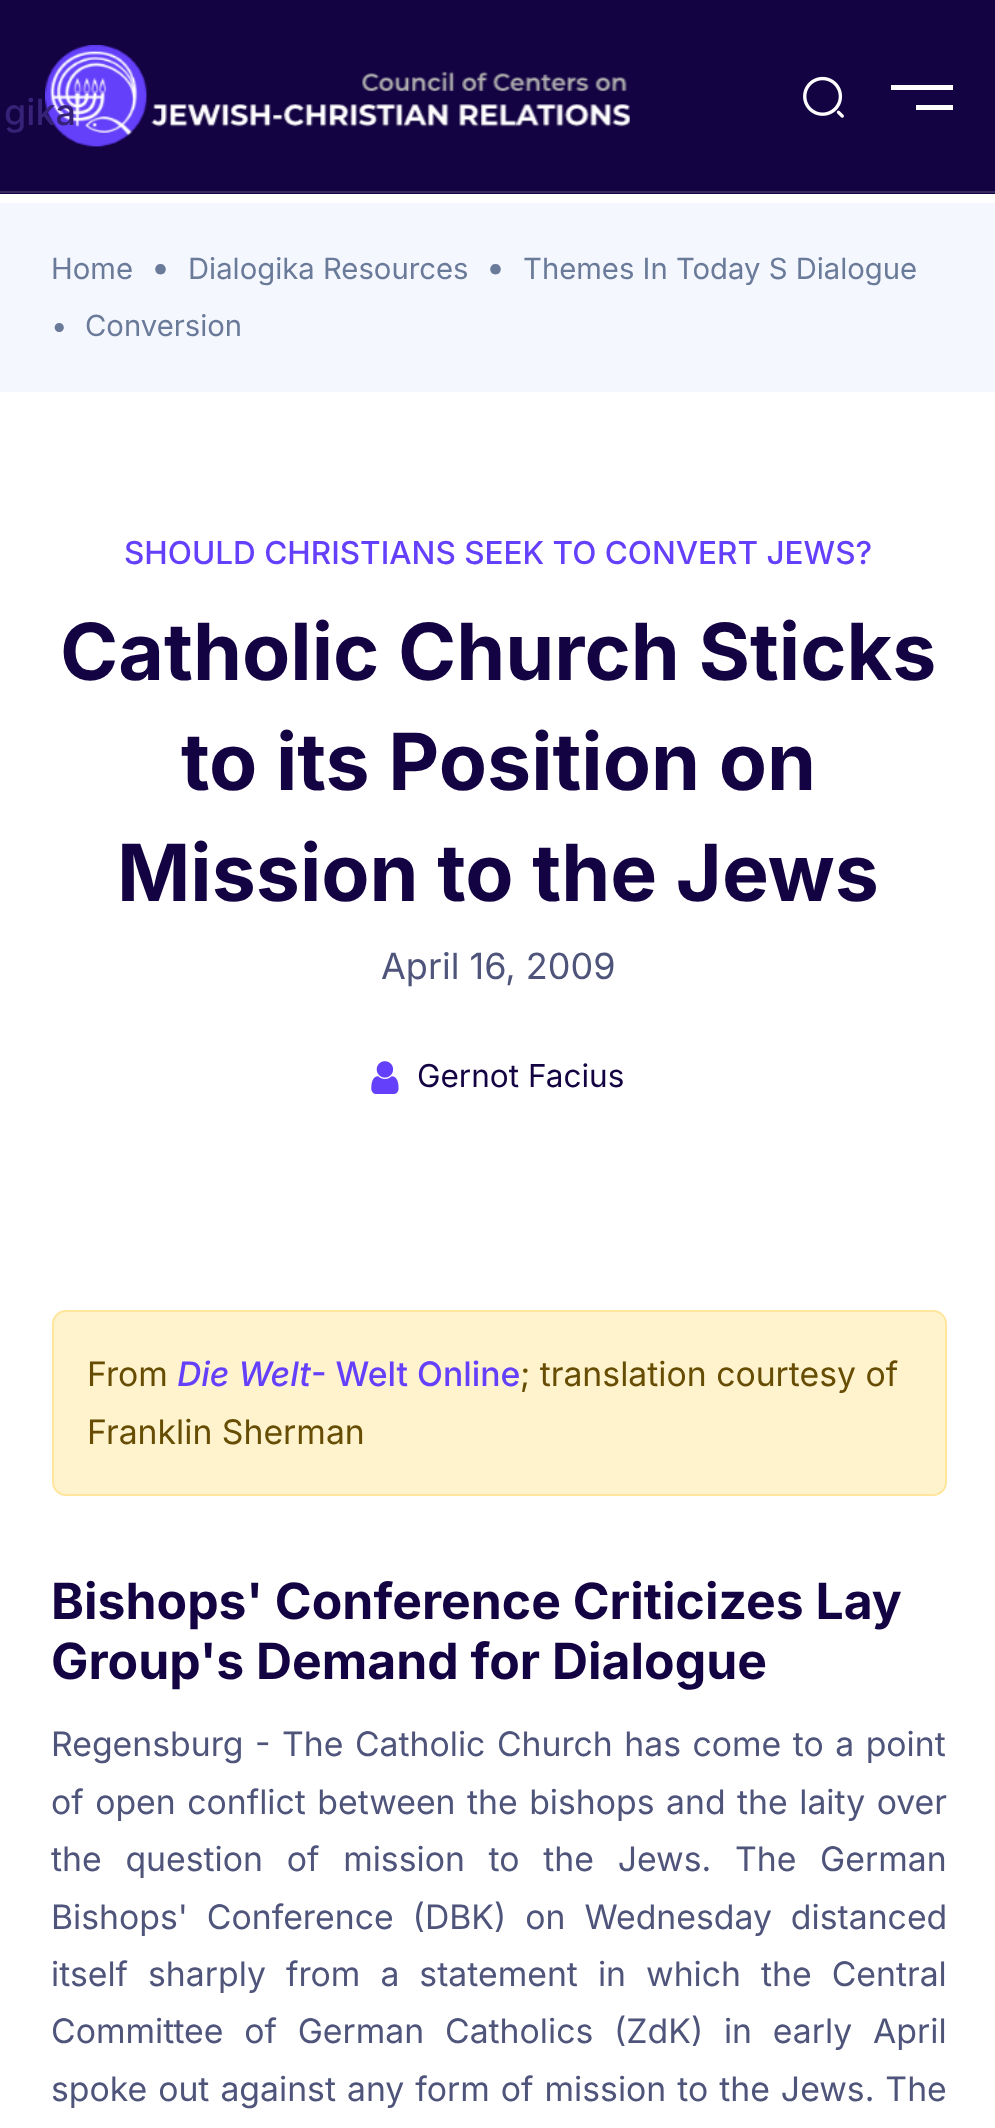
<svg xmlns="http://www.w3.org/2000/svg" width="995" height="2128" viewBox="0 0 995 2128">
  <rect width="100%" height="100%" fill="#fff"/>
  <path d="M0 0h995v194H0z" fill="#140342"/>
  <path d="M0 191h995v2H0z" fill="#37295e"/>
  <image x="45" y="45" width="585" height="102" href="img/1.png"/>
  <image x="803" y="76" width="41" height="42" href="img/2.png"/>
  <path d="M891 85H953V90H891ZM916 105H953V110H916Z" fill="#fff"/>
  <path d="M0 203h995v189H0z" fill="#f5f7fe"/>
  <image x="371" y="1061" width="28" height="33" href="img/3.png"/>
  <rect x="53" y="1311" width="893" height="184" rx="13" fill="#fff3cd" stroke="#ffe69c" stroke-width="2"/>
  <text x="4" y="125" font-family="Inter" font-size="36" font-weight="500" fill="#362378">gika</text>
  <text x="51" y="279" font-family="Inter" font-size="29.25" fill="#6a7a99">Home</text>
  <text x="151" y="279" font-family="Inter" font-size="33.75" fill="#6a7a99">•</text>
  <text x="188" y="279" font-family="Inter" font-size="29.25" fill="#6a7a99">Dialogika Resources</text>
  <text x="486" y="279" font-family="Inter" font-size="33.75" fill="#6a7a99">•</text>
  <g font-family="Inter" font-size="29.25" fill="#6a7a99">
    <text x="523" y="279">Themes In Today S Dialogue</text>
    <text x="51" y="336">•</text>
    <text x="85" y="336">Conversion</text>
  </g>
  <text x="124" y="564" font-family="Inter" font-size="31.5" font-weight="500" fill="#6440fb">SHOULD CHRISTIANS SEEK TO CONVERT JEWS?</text>
  <g font-family="Inter" font-size="78.75" font-weight="bold" fill="#140342">
    <text x="60" y="680">Catholic Church Sticks</text>
    <text x="181" y="790">to its Position on</text>
    <text x="117" y="901">Mission to the Jews</text>
  </g>
  <text x="381" y="979" font-family="Inter" font-size="36" fill="#4f547b">April 16, 2009</text>
  <text x="417" y="1087" font-family="Inter" font-size="31.5" fill="#140342">Gernot Facius</text>
  <text x="87" y="1386" font-family="Inter" font-size="33.75" fill="#664d03">From</text>
  <text x="177" y="1386" font-family="Inter" font-size="33.75" font-weight="500" font-style="italic" fill="#6440fb">Die Welt</text>
  <text x="311" y="1386" font-family="Inter" font-size="33.75" font-weight="500" fill="#6440fb">- Welt Online</text>
  <g font-family="Inter" font-size="33.75" fill="#664d03">
    <text x="520" y="1386">; translation courtesy of</text>
    <text x="87" y="1444">Franklin Sherman</text>
  </g>
  <g font-family="Inter" font-size="49.9" font-weight="bold" fill="#140342">
    <text x="51" y="1619">Bishops' Conference Criticizes Lay</text>
    <text x="51" y="1679">Group's Demand for Dialogue</text>
  </g>
  <g font-family="Inter" font-size="33.75" fill="#4f547b">
    <text x="51" y="1756" word-spacing="2">Regensburg - The Catholic Church has come to a point</text>
    <text x="51" y="1814" word-spacing="2">of open conflict between the bishops and the laity over</text>
    <text x="51" y="1871" word-spacing="14.25">the question of mission to the Jews. The German</text>
    <text x="51" y="1929" word-spacing="9.5">Bishops' Conference (DBK) on Wednesday distanced</text>
    <text x="51" y="1986" word-spacing="10.5">itself sharply from a statement in which the Central</text>
    <text x="51" y="2043" word-spacing="11.25">Committee of German Catholics (ZdK) in early April</text>
    <text x="51" y="2101" word-spacing="1.5">spoke out against any form of mission to the Jews. The</text>
  </g>
</svg>
